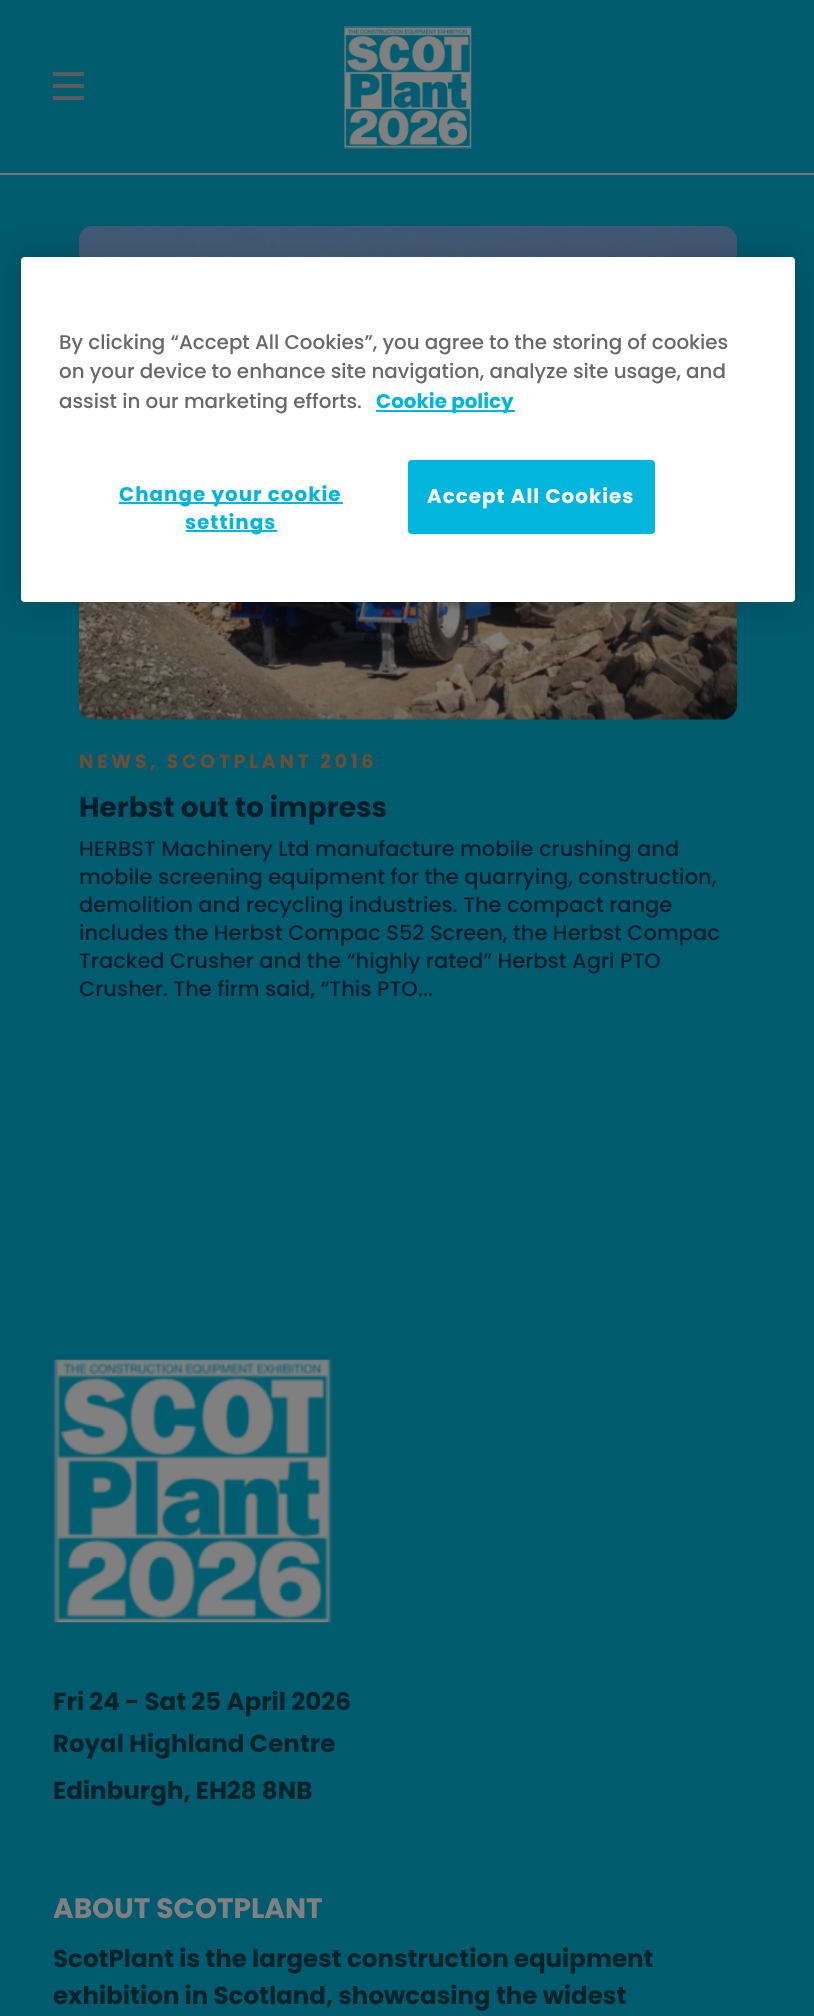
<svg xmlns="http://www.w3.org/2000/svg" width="814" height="2016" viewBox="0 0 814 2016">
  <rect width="100%" height="100%" fill="#005b6f"/>
  <image x="79" y="226" width="658" height="494" href="img/2.png"/>
  <rect x="21" y="257" width="774" height="345" rx="4" fill="#00000033" filter="blur(16px)"/>
  <rect x="21" y="257" width="774" height="345" rx="4" fill="#fff"/>
  <path d="M376 410h139v2H376z" fill="#02b5dd"/>
  <path d="M119 502h224v2H119z" fill="#02b5dd"/>
  <path d="M186 530h91v2H186z" fill="#02b5dd"/>
  <rect x="409" y="461" width="245" height="72" rx="3" fill="#02b5dd" stroke="#02b5dd" stroke-width="2"/>
  <path d="M0 173h814v2H0z" fill="#777"/>
  <path d="M53 72h31v4H53z" fill="#5b5b5b"/>
  <path d="M53 84h31v4H53z" fill="#5b5b5b"/>
  <path d="M53 96h31v4H53z" fill="#5b5b5b"/>
  <image x="344" y="26" width="128" height="123" href="img/1.png"/>
  <image x="52" y="1359" width="281" height="264" href="img/3.png"/>
  <g font-family="Poppins" font-size="19.9" font-weight="500" fill="#696969">
    <text x="59" y="349">By clicking “Accept All Cookies”, you agree to the storing of cookies</text>
    <text x="59" y="378">on your device to enhance site navigation, analyze site usage, and</text>
    <text x="59" y="408">assist in our marketing efforts.</text>
  </g>
  <text x="376" y="408" font-family="Poppins" font-size="19.9" font-weight="bold" fill="#02b5dd">Cookie policy</text>
  <g font-family="Poppins" font-size="19.9" font-weight="bold" letter-spacing="1" fill="#02b5dd">
    <text x="119" y="501">Change your cookie</text>
    <text x="185" y="529">settings</text>
  </g>
  <text x="427" y="503" font-family="Poppins" font-size="19.9" font-weight="bold" letter-spacing="1" fill="#fff">Accept All Cookies</text>
  <text x="79" y="768" font-family="Poppins" font-size="19.25" font-weight="bold" letter-spacing="3.5" fill="#6c4e35">NEWS, SCOTPLANT 2016</text>
  <text x="79" y="817" font-family="Poppins" font-size="28" font-weight="bold" fill="#001d2b">Herbst out to impress</text>
  <g font-family="Poppins" font-size="21" font-weight="500" fill="#001d2b">
    <text x="79" y="856">HERBST Machinery Ltd manufacture mobile crushing and</text>
    <text x="79" y="884">mobile screening equipment for the quarrying, construction,</text>
    <text x="79" y="912">demolition and recycling industries. The compact range</text>
    <text x="79" y="940">includes the Herbst Compac S52 Screen, the Herbst Compac</text>
    <text x="79" y="968">Tracked Crusher and the “highly rated” Herbst Agri PTO</text>
    <text x="79" y="996">Crusher. The firm said, “This PTO...</text>
  </g>
  <g font-family="Poppins" font-size="24.5" font-weight="bold" fill="#00232a">
    <text x="53" y="1710">Fri 24 - Sat 25 April 2026</text>
    <text x="53" y="1752">Royal Highland Centre</text>
    <text x="53" y="1799">Edinburgh, EH28 8NB</text>
  </g>
  <text x="53" y="1918" font-family="Poppins" font-size="28" font-weight="bold" fill="#808080">ABOUT SCOTPLANT</text>
  <g font-family="Poppins" font-size="24.5" font-weight="bold" fill="#00232a">
    <text x="53" y="1967">ScotPlant is the largest construction equipment</text>
    <text x="53" y="2004">exhibition in Scotland, showcasing the widest</text>
  </g>
</svg>
